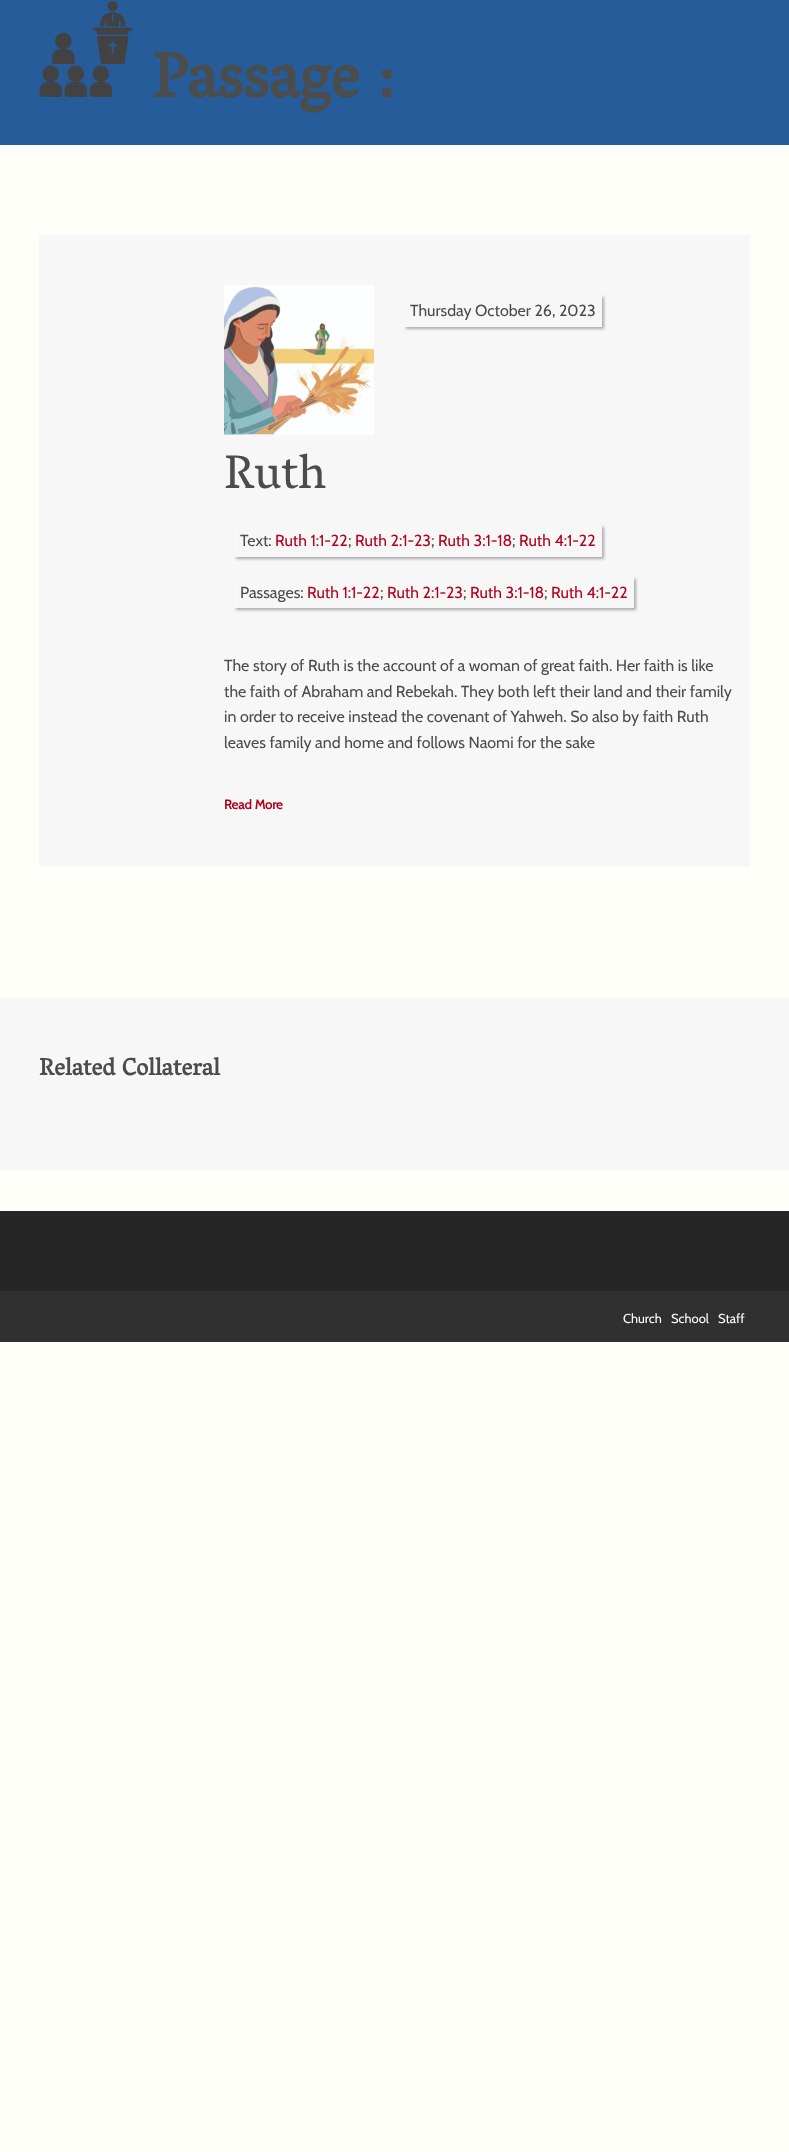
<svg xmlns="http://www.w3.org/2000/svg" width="789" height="2152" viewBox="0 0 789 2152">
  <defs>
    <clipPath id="clip1"><path d="M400 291H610V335H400ZM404 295H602V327H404Z" clip-rule="evenodd"/></clipPath>
    <clipPath id="clip2"><path d="M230 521H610V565H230ZM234 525H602V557H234Z" clip-rule="evenodd"/></clipPath>
    <clipPath id="clip3"><path d="M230 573H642V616H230ZM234 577H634V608H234Z" clip-rule="evenodd"/></clipPath>
  </defs>
  <rect width="100%" height="100%" fill="#fffffa"/>
  <path d="M0 0h789v145H0z" fill="#255c99"/>
  <image x="39" y="1" width="94" height="96" href="img/1.png"/>
  <path d="M39 235h711v632H39z" fill="#f7f7f7"/>
  <image x="224" y="285" width="150" height="150" href="img/2.png"/>
  <g clip-path="url(#clip1)">
    <path d="M406 297h198v32H406z" fill="#aaa" filter="blur(1.5px)"/>
  </g>
  <g clip-path="url(#clip2)">
    <path d="M236 527h368v32H236z" fill="#aaa" filter="blur(1.5px)"/>
  </g>
  <g clip-path="url(#clip3)">
    <path d="M236 579h400v31H236z" fill="#aaa" filter="blur(1.5px)"/>
  </g>
  <path d="M0 997h789v174H0z" fill="#f7f7f7"/>
  <path d="M0 1211h789v80H0z" fill="#262626"/>
  <path d="M0 1291h789v51H0z" fill="#303030"/>
  <text x="152" y="97" font-family="Vesper Libre" font-size="64" font-weight="bold" fill="#4b4c4c">Passage :</text>
  <g font-family="Cabin" font-size="16" fill="#4b4c4c">
    <text x="410" y="316">Thursday October 26, 2023</text>
    <text x="240" y="546">Text:</text>
  </g>
  <text x="275" y="546" font-family="Cabin" font-size="16" fill="#b3001b">Ruth 1:1-22</text>
  <text x="348" y="546" font-family="Cabin" font-size="16" fill="#4b4c4c">;</text>
  <text x="355" y="546" font-family="Cabin" font-size="16" fill="#b3001b">Ruth 2:1-23</text>
  <text x="431" y="546" font-family="Cabin" font-size="16" fill="#4b4c4c">;</text>
  <text x="438" y="546" font-family="Cabin" font-size="16" fill="#b3001b">Ruth 3:1-18</text>
  <text x="512" y="546" font-family="Cabin" font-size="16" fill="#4b4c4c">;</text>
  <text x="519" y="546" font-family="Cabin" font-size="16" fill="#b3001b">Ruth 4:1-22</text>
  <text x="240" y="598" font-family="Cabin" font-size="16" fill="#4b4c4c">Passages:</text>
  <text x="307" y="598" font-family="Cabin" font-size="16" fill="#b3001b">Ruth 1:1-22</text>
  <text x="380" y="598" font-family="Cabin" font-size="16" fill="#4b4c4c">;</text>
  <text x="387" y="598" font-family="Cabin" font-size="16" fill="#b3001b">Ruth 2:1-23</text>
  <text x="463" y="598" font-family="Cabin" font-size="16" fill="#4b4c4c">;</text>
  <text x="470" y="598" font-family="Cabin" font-size="16" fill="#b3001b">Ruth 3:1-18</text>
  <text x="544" y="598" font-family="Cabin" font-size="16" fill="#4b4c4c">;</text>
  <text x="551" y="598" font-family="Cabin" font-size="16" fill="#b3001b">Ruth 4:1-22</text>
  <text x="224" y="488" font-family="Vesper Libre" font-size="48" fill="#4b4c4c">Ruth</text>
  <g font-family="Cabin" font-size="16" fill="#4b4c4c">
    <text x="224" y="671">The story of Ruth is the account of a woman of great faith. Her faith is like</text>
    <text x="224" y="697">the faith of Abraham and Rebekah. They both left their land and their family</text>
    <text x="224" y="722">in order to receive instead the covenant of Yahweh. So also by faith Ruth</text>
    <text x="224" y="748">leaves family and home and follows Naomi for the sake</text>
  </g>
  <text x="224" y="809" font-family="Cabin" font-size="13" font-weight="bold" fill="#b3001b">Read More</text>
  <text x="39" y="1075" font-family="Vesper Libre" font-size="24" font-weight="bold" fill="#4b4c4c">Related Collateral</text>
  <g font-family="Cabin" font-size="13" fill="#fffffa">
    <text x="623" y="1323">Church</text>
    <text x="671" y="1323">School</text>
    <text x="718" y="1323">Staff</text>
  </g>
</svg>
